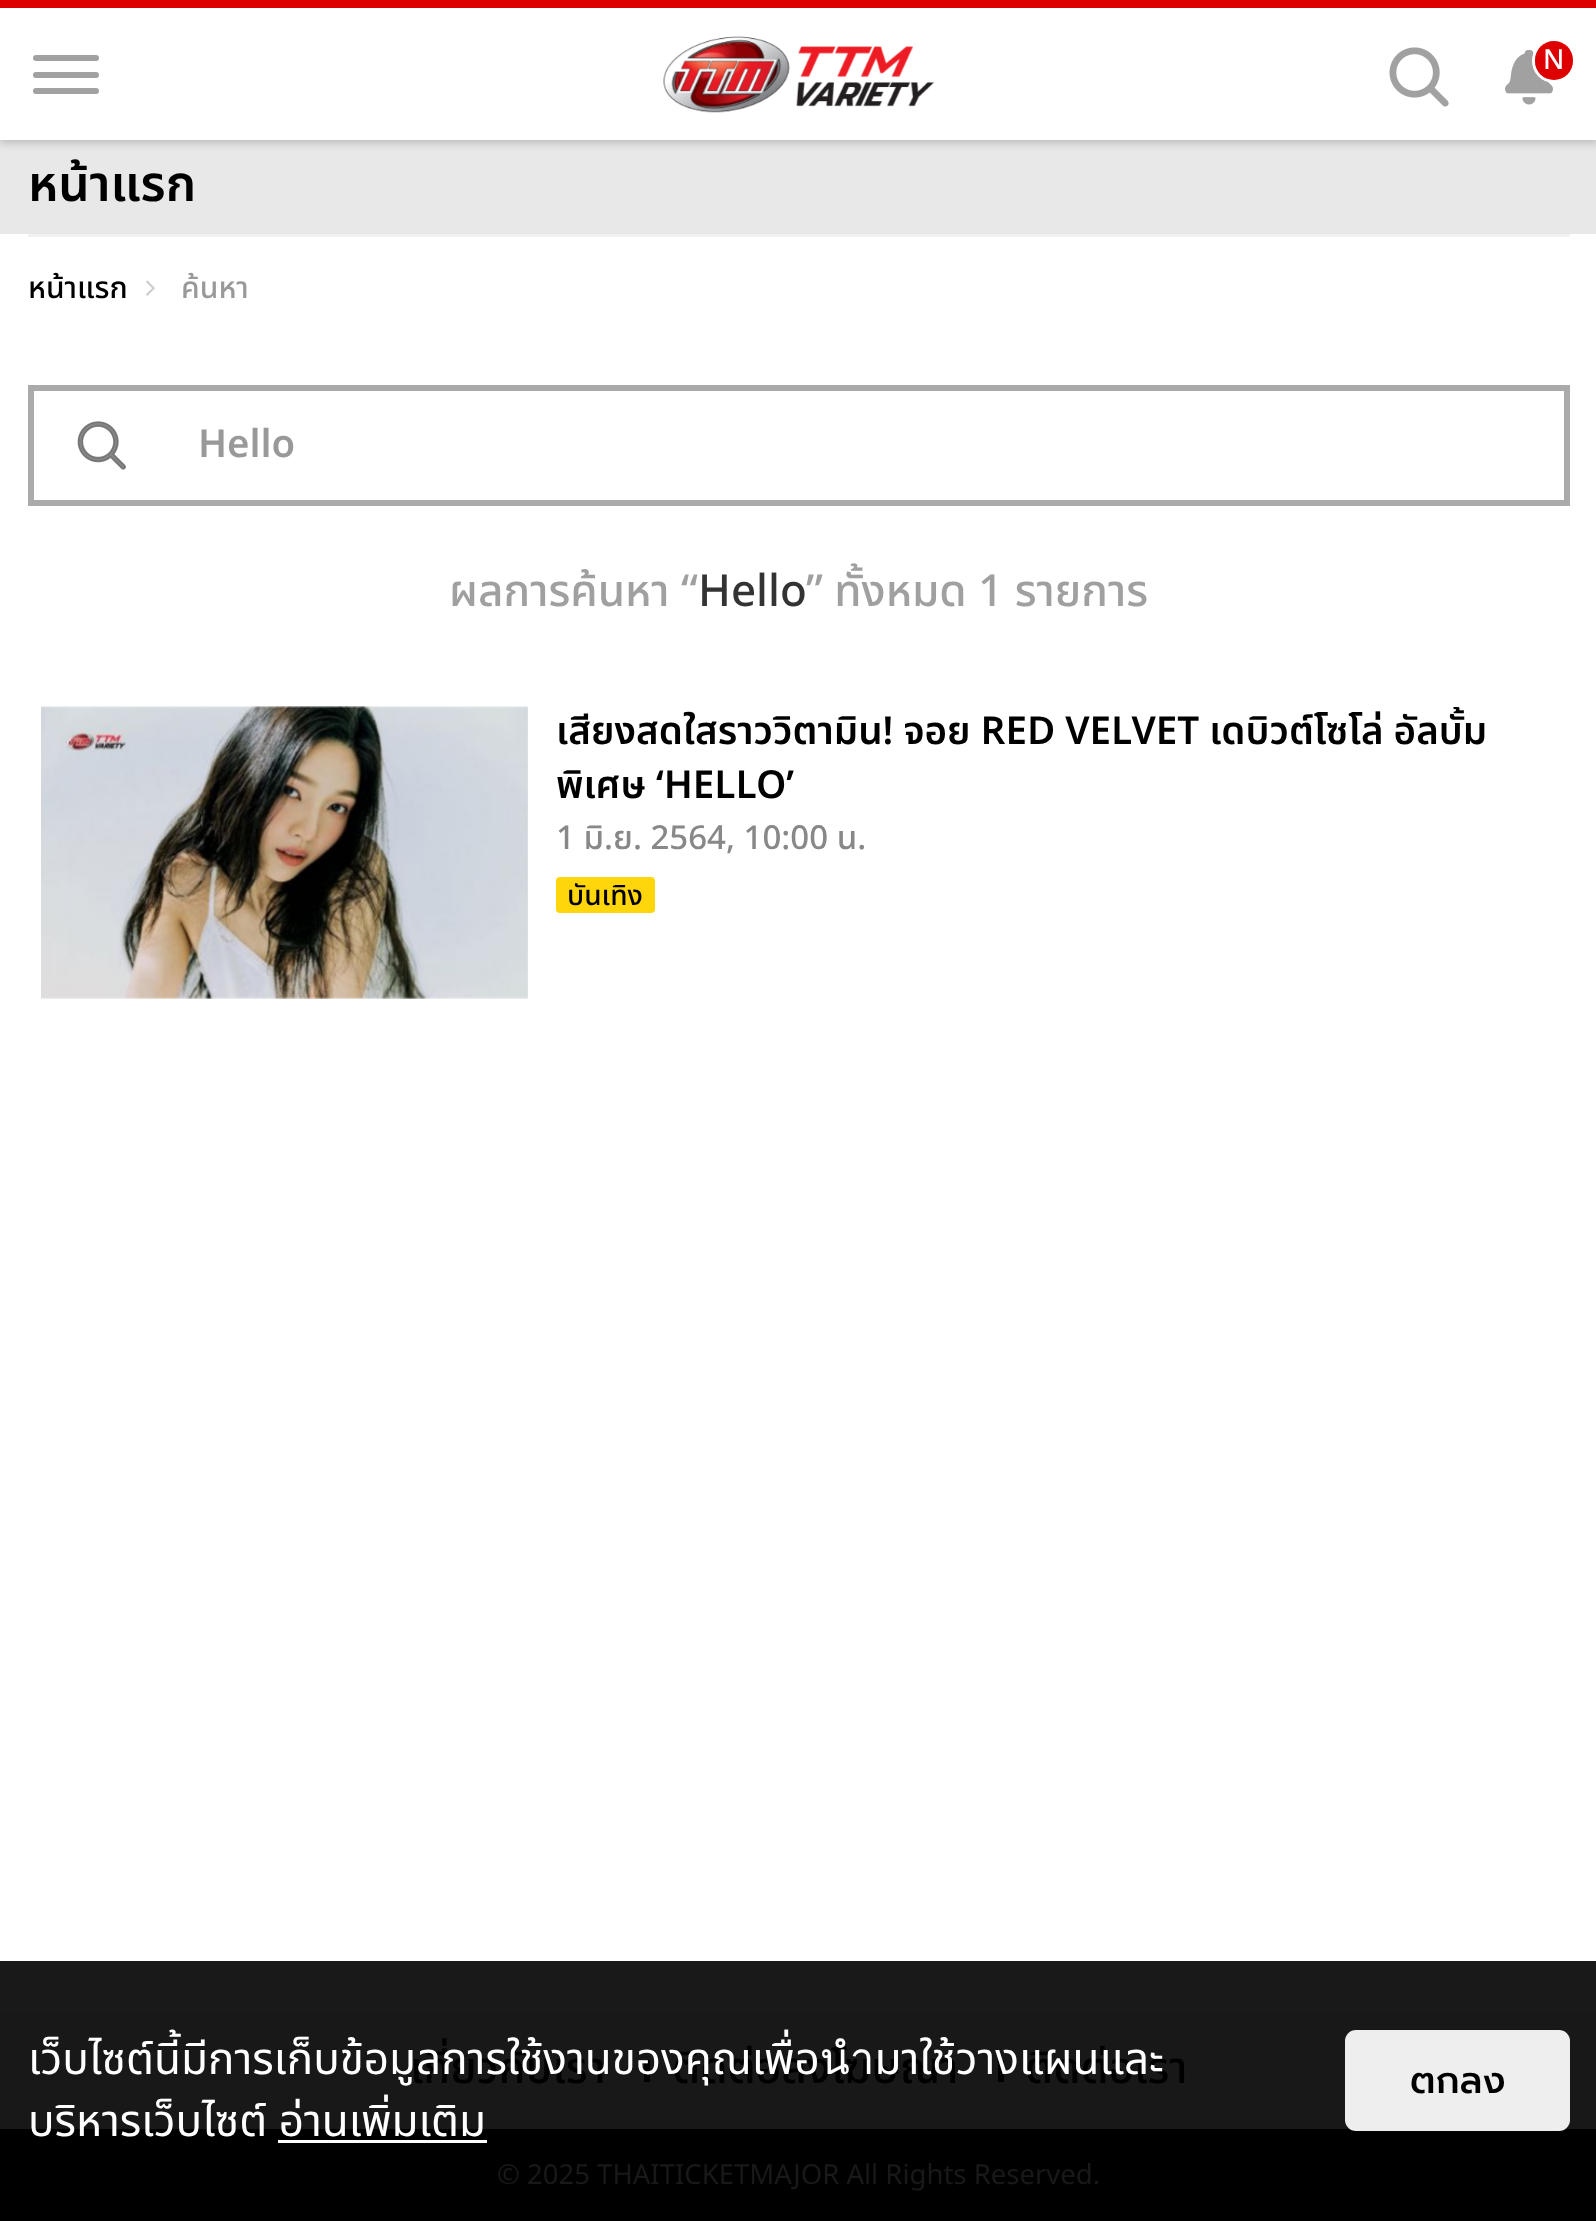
<svg xmlns="http://www.w3.org/2000/svg" width="1596" height="2221" viewBox="0 0 1596 2221">
  <defs>
    <clipPath id="clip1"><path d="M556 707h1001v107H556z"/></clipPath>
  </defs>
  <rect width="100%" height="100%" fill="#fff"/>
  <path d="M0 1961h1596v52H0z" fill="#191919"/>
  <path d="M0 140h1596v94H0z" fill="#e8e8e8"/>
  <path d="M0 3h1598v140H0z" fill="#00000033" filter="blur(4px)"/>
  <path d="M0 8h1596v132H0z" fill="#fff"/>
  <path d="M0 0h1596v8H0z" fill="#de0000"/>
  <rect x="33" y="55" width="66" height="6" rx="3" fill="#a1a1a1"/>
  <rect x="33" y="72" width="66" height="6" rx="3" fill="#a1a1a1"/>
  <rect x="33" y="88" width="66" height="6" rx="3" fill="#a1a1a1"/>
  <image x="663" y="36" width="272" height="77" href="img/1.png"/>
  <image x="1389" y="47" width="60" height="60" href="img/2.png"/>
  <image x="1505" y="50" width="48" height="55" href="img/3.png"/>
  <circle cx="1554" cy="61" r="20.5" fill="none" stroke="#fff" stroke-width="3"/>
  <rect x="1535" y="41" width="38" height="39" rx="19" fill="#de0000"/>
  <path d="M28 234h1542v3H28z" fill="#f2f2f2"/>
  <image x="146" y="280" width="9" height="16" href="img/4.png"/>
  <path d="M31 388h1536v115H31z" fill="none" stroke="#aaa" stroke-width="6"/>
  <image x="77" y="421" width="49" height="49" href="img/5.png"/>
  <image x="41" y="706" width="487" height="293" href="img/6.png"/>
  <rect x="556" y="877" width="99" height="36" rx="4" fill="#ffd60c"/>
  <path d="M0 2013h1596v116H0z" fill="#181818"/>
  <path d="M644 2060h6v22H644z" fill="#000"/>
  <path d="M998 2060h6v22H998z" fill="#000"/>
  <path d="M0 2129h1596v92H0z" fill="#000"/>
  <path d="M278 2140h209v3H278z" fill="#fff"/>
  <rect x="1345" y="2030" width="225" height="101" rx="11" fill="#eee"/>
  <text x="1543" y="69" font-family="Noto Sans Thai" font-size="27.5" font-weight="500" fill="#fff">N</text>
  <text x="28" y="201" font-family="Noto Sans Thai" font-size="49.5" font-weight="600" fill="#000">หน้าแรก</text>
  <text x="28" y="298" font-family="Noto Sans Thai" font-size="30" font-weight="500" fill="#000">หน้าแรก</text>
  <text x="181" y="298" font-family="Noto Sans Thai" font-size="30" font-weight="500" fill="#999">ค้นหา</text>
  <text x="198" y="457" font-family="Noto Sans Thai" font-size="38.5" font-weight="600" fill="#999">Hello</text>
  <text x="449" y="606" font-family="Noto Sans Thai" font-size="44" font-weight="500" fill="#a0a0a0">ผลการค้นหา “</text>
  <text x="698" y="606" font-family="Noto Sans Thai" font-size="44" font-weight="500" fill="#333">Hello</text>
  <text x="806" y="606" font-family="Noto Sans Thai" font-size="44" font-weight="500" fill="#a0a0a0">” ทั้งหมด 1 รายการ</text>
  <g clip-path="url(#clip1)">
    <g font-family="Noto Sans Thai" font-size="38.5" font-weight="600" fill="#000">
      <text x="556" y="744">เสียงสดใสราววิตามิน! จอย RED VELVET เดบิวต์โซโล่ อัลบั้ม</text>
      <text x="556" y="798">พิเศษ ‘HELLO’</text>
    </g>
  </g>
  <text x="556" y="849" font-family="Noto Sans Thai" font-size="33" font-weight="500" fill="#888">1 มิ.ย. 2564, 10:00 น.</text>
  <text x="567" y="905" font-family="Noto Sans Thai" font-size="28" font-weight="500" fill="#000">บันเทิง</text>
  <g font-family="Noto Sans Thai" font-size="44" font-weight="500" fill="#000">
    <text x="410" y="2083">เกี่ยวกับเรา</text>
    <text x="672" y="2083">ติดต่อลงโฆษณา</text>
    <text x="1025" y="2083">ติดต่อเรา</text>
  </g>
  <text x="497" y="2184" font-family="Noto Sans Thai" font-size="27.5" fill="#191919">© 2025 THAITICKETMAJOR All Rights Reserved.</text>
  <g font-family="Noto Sans Thai" font-size="44" fill="#fff">
    <text x="28" y="2074">เว็บไซต์นี้มีการเก็บข้อมูลการใช้งานของคุณเพื่อนำมาใช้วางแผนและ</text>
    <text x="28" y="2136">บริหารเว็บไซต์ อ่านเพิ่มเติม</text>
  </g>
  <text x="1410" y="2093" font-family="Prompt" font-size="37" font-weight="500" fill="#000">ตกลง</text>
</svg>
